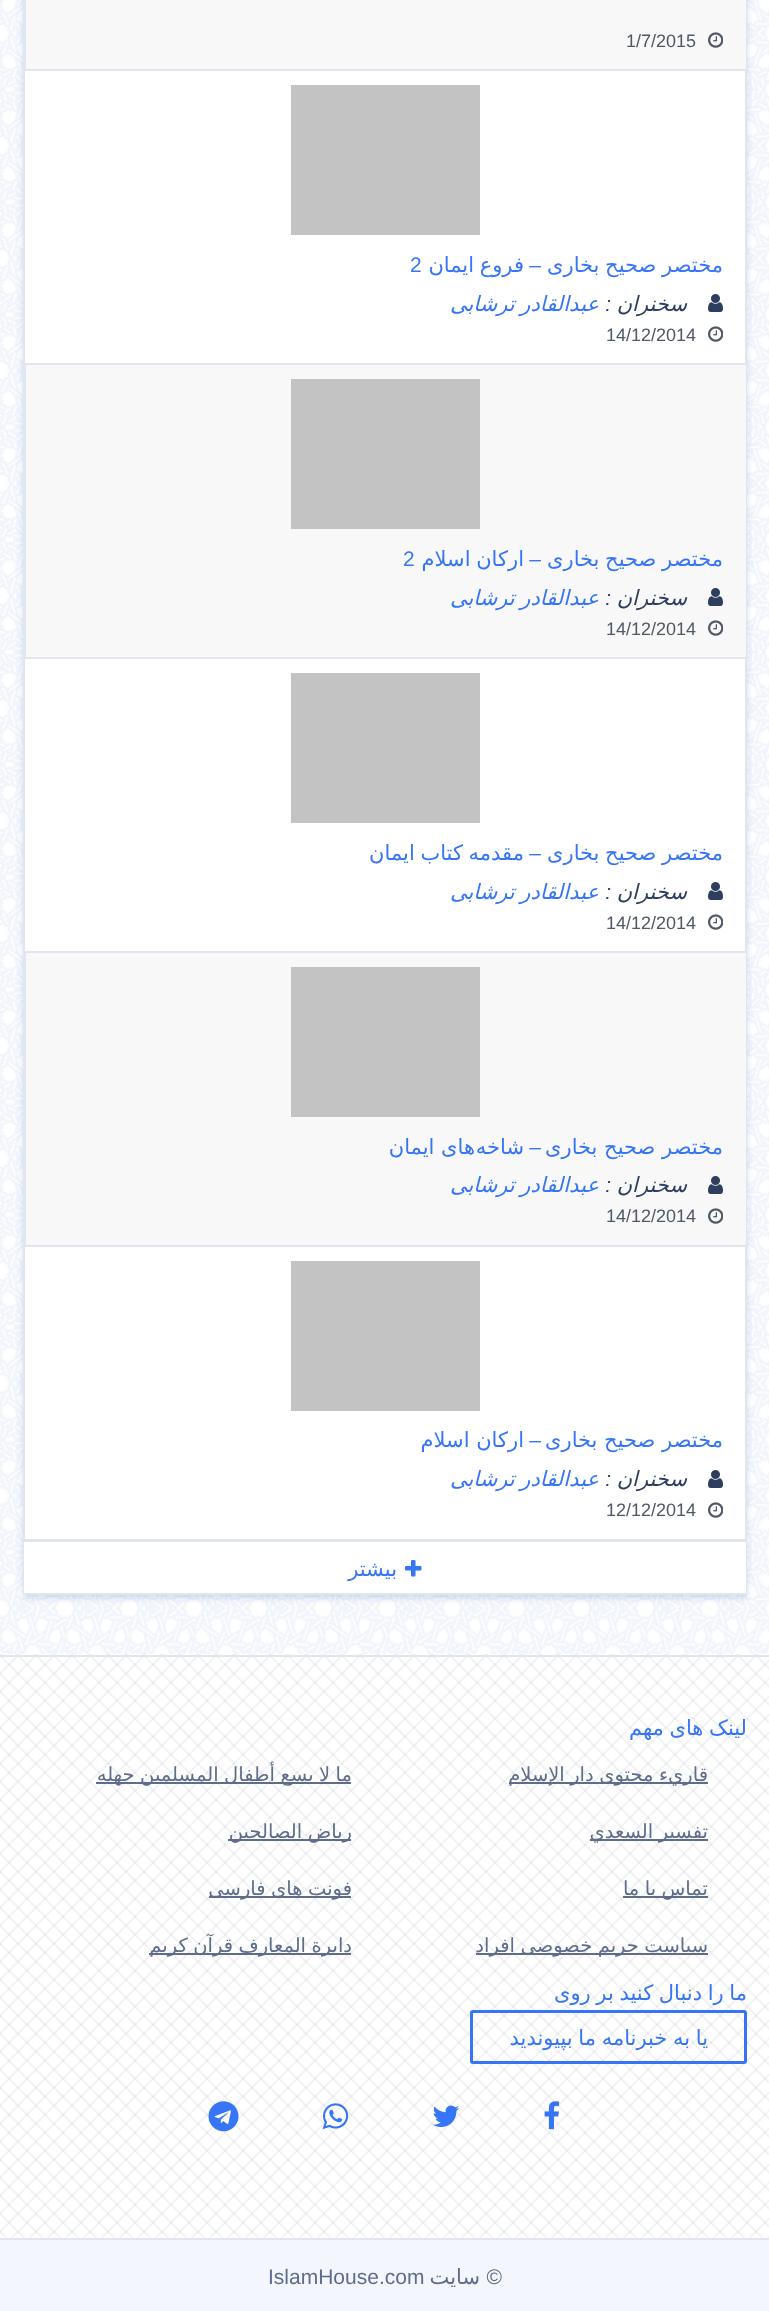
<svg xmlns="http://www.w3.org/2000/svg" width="769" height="2311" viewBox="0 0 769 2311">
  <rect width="100%" height="100%" fill="#f3f6fc"/>
  <image x="0" y="0" width="769" height="1654" href="img/1.png"/>
  <path d="M23 -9h724v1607H23z" fill="#1d4fb333" filter="blur(3px)"/>
  <path d="M25 71h720v1468H25z" fill="#fff"/>
  <path d="M24 -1h722v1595H24z" fill="none" stroke="#e0e5ee" stroke-width="2"/>
  <path d="M26 0h720v69H26z" fill="#f8f8f8"/>
  <path d="M25 0h1v69H25z" fill="#e0e5ee"/>
  <path d="M24 69h722v2H24z" fill="#e0e5ee"/>
  <image x="708" y="32" width="15" height="16" href="img/2.png"/>
  <path d="M24 363h722v2H24z" fill="#e0e5ee"/>
  <path d="M291 85h189v150H291z" fill="#c3c3c3"/>
  <image x="708" y="294" width="15" height="18" href="img/3.png"/>
  <image x="708" y="326" width="15" height="16" href="img/4.png"/>
  <path d="M26 365h720v292H26z" fill="#f8f8f8"/>
  <path d="M25 365h1v292H25z" fill="#e0e5ee"/>
  <path d="M24 657h722v2H24z" fill="#e0e5ee"/>
  <path d="M291 379h189v150H291z" fill="#c3c3c3"/>
  <image x="708" y="588" width="15" height="18" href="img/5.png"/>
  <image x="708" y="620" width="15" height="16" href="img/2.png"/>
  <path d="M24 951h722v2H24z" fill="#e0e5ee"/>
  <path d="M291 673h189v150H291z" fill="#c3c3c3"/>
  <image x="708" y="882" width="15" height="18" href="img/3.png"/>
  <image x="708" y="914" width="15" height="16" href="img/4.png"/>
  <path d="M26 953h720v292H26z" fill="#f8f8f8"/>
  <path d="M25 953h1v292H25z" fill="#e0e5ee"/>
  <path d="M24 1245h722v2H24z" fill="#e0e5ee"/>
  <path d="M291 967h189v150H291z" fill="#c3c3c3"/>
  <image x="708" y="1176" width="15" height="18" href="img/5.png"/>
  <image x="708" y="1208" width="15" height="16" href="img/2.png"/>
  <path d="M291 1261h189v150H291z" fill="#c3c3c3"/>
  <image x="708" y="1470" width="15" height="18" href="img/3.png"/>
  <image x="708" y="1502" width="15" height="16" href="img/4.png"/>
  <path d="M24 1539h722v3H24z" fill="#e0e5ee"/>
  <path d="M24 1542h722v51H24z" fill="#fff"/>
  <image x="405" y="1560" width="17" height="17" href="img/6.png"/>
  <path d="M0 2237h769v1H0z" fill="#fff"/>
  <image x="0" y="1654" width="769" height="584" href="img/7.png"/>
  <path d="M0 1655h769v2H0z" fill="#e0e5ee"/>
  <path d="M509 1782h199v2H509z" fill="#5e6d8c"/>
  <path d="M96 1782h255v2H96z" fill="#5e6d8c"/>
  <path d="M590 1839h118v2H590z" fill="#5e6d8c"/>
  <path d="M228 1839h123v2H228z" fill="#5e6d8c"/>
  <path d="M623 1896h85v2H623z" fill="#5e6d8c"/>
  <path d="M209 1896h142v2H209z" fill="#5e6d8c"/>
  <path d="M476 1953h232v2H476z" fill="#5e6d8c"/>
  <path d="M149 1953h202v2H149z" fill="#5e6d8c"/>
  <rect x="471.5" y="2011.5" width="274" height="51" rx="1.5" fill="none" stroke="#3575f6" stroke-width="3"/>
  <image x="544" y="2101" width="16" height="29" href="img/8.png"/>
  <image x="433" y="2105" width="26" height="22" href="img/9.png"/>
  <image x="322" y="2103" width="27" height="27" href="img/10.png"/>
  <image x="208" y="2101" width="31" height="31" href="img/11.png"/>
  <path d="M0 2238h769v2H0z" fill="#e0e5ee"/>
  <text x="626" y="47" font-family="Liberation Sans" font-size="18" fill="#515866">1/7/2015</text>
  <text x="723" y="272" word-spacing="-1" font-family="DejaVu Sans" font-size="21" direction="rtl" fill="#3575f6">مختصر صحیح بخاری</text>
  <text x="541" y="272" font-family="Liberation Sans" font-size="21" direction="rtl" fill="#3575f6">–</text>
  <text x="524" y="272" word-spacing="-1" font-family="DejaVu Sans" font-size="21" direction="rtl" fill="#3575f6">فروع ایمان</text>
  <text x="410" y="272" font-family="Liberation Sans" font-size="21" fill="#3575f6">2</text>
  <text x="687" y="311" font-family="DejaVu Sans" font-size="21" font-style="italic" direction="rtl" fill="#2d3e5f">سخنران</text>
  <text x="611" y="311" font-family="Liberation Sans" font-size="21" font-style="italic" direction="rtl" fill="#2d3e5f">:</text>
  <text x="599" y="311" word-spacing="-1" font-family="DejaVu Sans" font-size="21" font-style="italic" direction="rtl" fill="#3575f6">عبدالقادر ترشابی</text>
  <text x="606" y="341" font-family="Liberation Sans" font-size="18" fill="#515866">14/12/2014</text>
  <text x="723" y="566" word-spacing="-1" font-family="DejaVu Sans" font-size="21" direction="rtl" fill="#3575f6">مختصر صحیح بخاری</text>
  <text x="541" y="566" font-family="Liberation Sans" font-size="21" direction="rtl" fill="#3575f6">–</text>
  <text x="524" y="566" word-spacing="-1" font-family="DejaVu Sans" font-size="21" direction="rtl" fill="#3575f6">ارکان اسلام</text>
  <text x="403" y="566" font-family="Liberation Sans" font-size="21" fill="#3575f6">2</text>
  <text x="687" y="605" font-family="DejaVu Sans" font-size="21" font-style="italic" direction="rtl" fill="#2d3e5f">سخنران</text>
  <text x="611" y="605" font-family="Liberation Sans" font-size="21" font-style="italic" direction="rtl" fill="#2d3e5f">:</text>
  <text x="599" y="605" word-spacing="-1" font-family="DejaVu Sans" font-size="21" font-style="italic" direction="rtl" fill="#3575f6">عبدالقادر ترشابی</text>
  <text x="606" y="635" font-family="Liberation Sans" font-size="18" fill="#515866">14/12/2014</text>
  <text x="723" y="860" word-spacing="-1" font-family="DejaVu Sans" font-size="21" direction="rtl" fill="#3575f6">مختصر صحیح بخاری</text>
  <text x="541" y="860" font-family="Liberation Sans" font-size="21" direction="rtl" fill="#3575f6">–</text>
  <text x="524" y="860" word-spacing="-1" font-family="DejaVu Sans" font-size="21" direction="rtl" fill="#3575f6">مقدمه كتاب ایمان</text>
  <text x="687" y="899" font-family="DejaVu Sans" font-size="21" font-style="italic" direction="rtl" fill="#2d3e5f">سخنران</text>
  <text x="611" y="899" font-family="Liberation Sans" font-size="21" font-style="italic" direction="rtl" fill="#2d3e5f">:</text>
  <text x="599" y="899" word-spacing="-1" font-family="DejaVu Sans" font-size="21" font-style="italic" direction="rtl" fill="#3575f6">عبدالقادر ترشابی</text>
  <text x="606" y="929" font-family="Liberation Sans" font-size="18" fill="#515866">14/12/2014</text>
  <text x="723" y="1154" font-family="DejaVu Sans" font-size="21" direction="rtl" fill="#3575f6">مختصر صحیح بخاری</text>
  <text x="541" y="1154" font-family="Liberation Sans" font-size="21" direction="rtl" fill="#3575f6">–</text>
  <g font-family="DejaVu Sans" font-size="21" direction="rtl" fill="#3575f6">
    <text x="524" y="1154">شاخه</text>
    <text x="475" y="1154">های ایمان</text>
  </g>
  <text x="687" y="1192" font-family="DejaVu Sans" font-size="21" font-style="italic" direction="rtl" fill="#2d3e5f">سخنران</text>
  <text x="611" y="1192" font-family="Liberation Sans" font-size="21" font-style="italic" direction="rtl" fill="#2d3e5f">:</text>
  <text x="599" y="1192" word-spacing="-1" font-family="DejaVu Sans" font-size="21" font-style="italic" direction="rtl" fill="#3575f6">عبدالقادر ترشابی</text>
  <text x="606" y="1222" font-family="Liberation Sans" font-size="18" fill="#515866">14/12/2014</text>
  <text x="723" y="1447" font-family="DejaVu Sans" font-size="21" direction="rtl" fill="#3575f6">مختصر صحیح بخاری</text>
  <text x="541" y="1447" font-family="Liberation Sans" font-size="21" direction="rtl" fill="#3575f6">–</text>
  <text x="524" y="1447" font-family="DejaVu Sans" font-size="21" direction="rtl" fill="#3575f6">اركان اسلام</text>
  <text x="687" y="1486" font-family="DejaVu Sans" font-size="21" font-style="italic" direction="rtl" fill="#2d3e5f">سخنران</text>
  <text x="611" y="1486" font-family="Liberation Sans" font-size="21" font-style="italic" direction="rtl" fill="#2d3e5f">:</text>
  <text x="599" y="1486" word-spacing="-1" font-family="DejaVu Sans" font-size="21" font-style="italic" direction="rtl" fill="#3575f6">عبدالقادر ترشابی</text>
  <text x="606" y="1516" font-family="Liberation Sans" font-size="18" fill="#515866">12/12/2014</text>
  <g font-family="DejaVu Sans" font-size="21" direction="rtl" fill="#3575f6">
    <text x="397" y="1576">بیشتر</text>
    <text x="747" y="1735" word-spacing="-1">لینک های مهم</text>
  </g>
  <g font-family="DejaVu Sans" font-size="19.5" direction="rtl" fill="#5e6d8c">
    <text x="708" y="1781" word-spacing="-0.75">قاريء محتوى دار الإسلام</text>
    <text x="352" y="1781" word-spacing="-0.75">ما لا يسع أطفال المسلمين جهله</text>
    <text x="708" y="1838" word-spacing="-0.75">تفسير السعدي</text>
    <text x="352" y="1838" word-spacing="-0.75">رياض الصالحين</text>
    <text x="708" y="1895" word-spacing="-0.75">تماس با ما</text>
    <text x="352" y="1895" word-spacing="-0.75">فونت هاى فارسى</text>
    <text x="708" y="1952" word-spacing="-0.75">سیاست حریم خصوصی افراد</text>
    <text x="352" y="1952" word-spacing="-0.75">دایرة المعارف قرآن کریم</text>
  </g>
  <g font-family="DejaVu Sans" font-size="21" direction="rtl" fill="#3575f6">
    <text x="747" y="2000" word-spacing="-1">ما را دنبال کنید بر روی</text>
    <text x="708" y="2045" word-spacing="-1">یا به خبرنامه ما بپیوندید</text>
  </g>
  <text x="502" y="2284" font-family="Liberation Sans" font-size="21" direction="rtl" fill="#5e6d8c">©</text>
  <text x="480" y="2284" font-family="DejaVu Sans" font-size="21" direction="rtl" fill="#5e6d8c">سایت</text>
  <text x="268" y="2284" font-family="Liberation Sans" font-size="21" fill="#5e6d8c">IslamHouse.com</text>
</svg>
